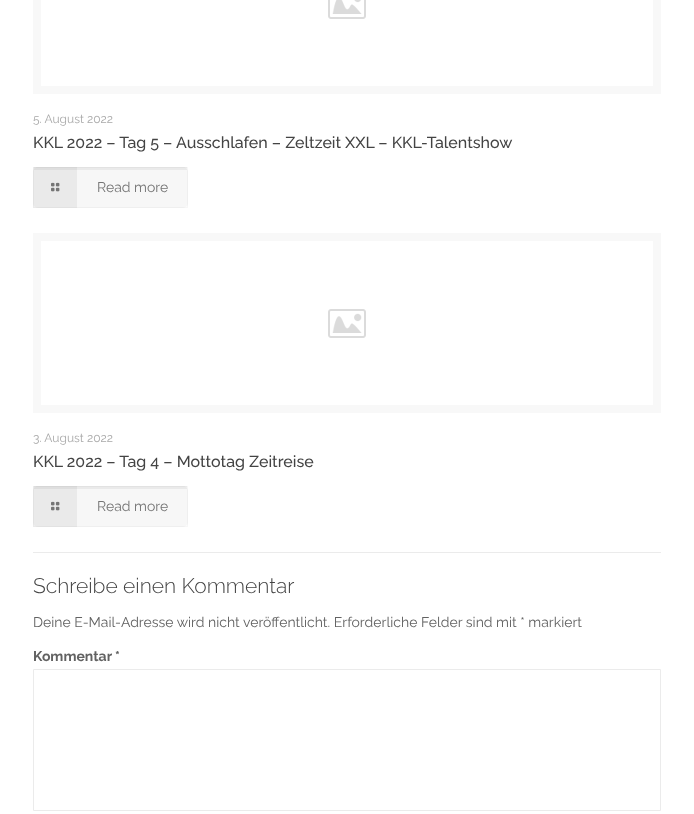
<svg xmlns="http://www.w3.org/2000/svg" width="694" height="814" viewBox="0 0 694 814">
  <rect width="100%" height="100%" fill="#fff"/>
  <image x="328" y="0" width="38" height="19" href="img/1.png"/>
  <path d="M37 -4h620v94H37z" fill="none" stroke="#f8f8f8" stroke-width="8"/>
  <rect x="33" y="167" width="155" height="41" rx="5" fill="#f7f7f7"/>
  <path d="M34 167h153v3H34z" fill="#0000000d"/>
  <path d="M33.5 167.5h154v40H33.5z" fill="none" stroke="#00000008"/>
  <path d="M33 167h44v41H33z" fill="#0000000d"/>
  <image x="51" y="182" width="9" height="10" href="img/2.png"/>
  <image x="328" y="309" width="38" height="29" href="img/3.png"/>
  <path d="M37 237h620v172H37z" fill="none" stroke="#f8f8f8" stroke-width="8"/>
  <rect x="33" y="486" width="155" height="41" rx="5" fill="#f7f7f7"/>
  <path d="M34 486h153v3H34z" fill="#0000000d"/>
  <path d="M33.5 486.5h154v40H33.5z" fill="none" stroke="#00000008"/>
  <path d="M33 486h44v41H33z" fill="#0000000d"/>
  <image x="51" y="501" width="9" height="10" href="img/2.png"/>
  <path d="M33 552h628v1H33z" fill="#ebebeb"/>
  <path d="M33.5 669.5h627v141H33.5z" fill="none" stroke="#ebebeb"/>
  <text x="33" y="123" font-family="Raleway" font-size="12" fill="#a8a8a8">5. August 2022</text>
  <text x="33" y="148" font-family="Raleway" font-size="16" font-weight="500" fill="#444">KKL 2022 – Tag 5 – Ausschlafen – Zeltzeit XXL – KKL-Talentshow</text>
  <text x="97" y="192" font-family="Raleway" font-size="14" fill="#747474">Read more</text>
  <text x="33" y="442" font-family="Raleway" font-size="12" fill="#a8a8a8">3. August 2022</text>
  <text x="33" y="467" font-family="Raleway" font-size="16" font-weight="500" fill="#444">KKL 2022 – Tag 4 – Mottotag Zeitreise</text>
  <text x="97" y="511" font-family="Raleway" font-size="14" fill="#747474">Read more</text>
  <text x="33" y="593" font-family="Raleway" font-size="21" font-weight="300" fill="#444">Schreibe einen Kommentar</text>
  <text x="33" y="627" font-family="Raleway" font-size="14" fill="#626262">Deine E-Mail-Adresse wird nicht veröffentlicht. Erforderliche Felder sind mit * markiert</text>
  <text x="33" y="661" font-family="Raleway" font-size="14" font-weight="bold" fill="#626262">Kommentar *</text>
</svg>
